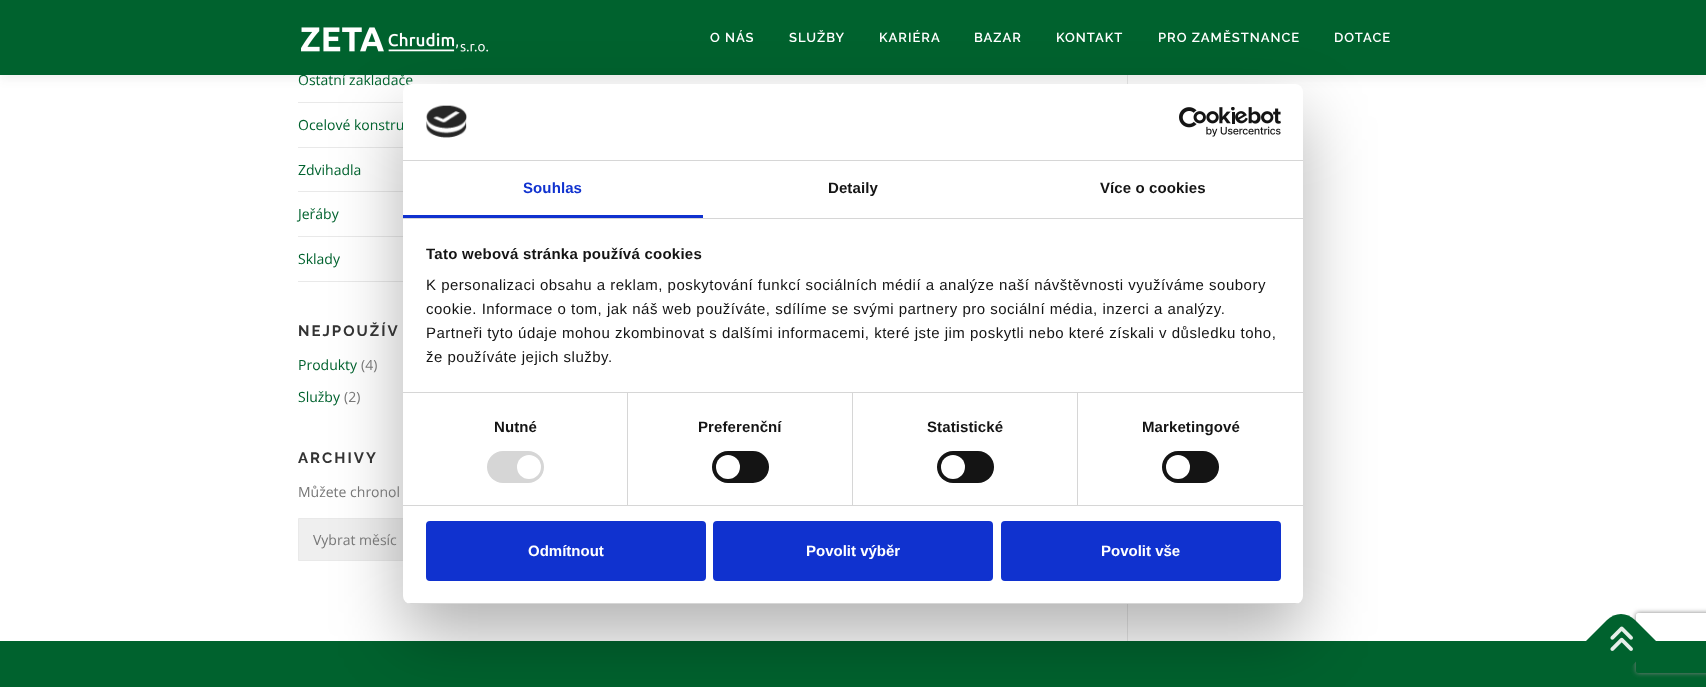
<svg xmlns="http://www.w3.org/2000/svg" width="1706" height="687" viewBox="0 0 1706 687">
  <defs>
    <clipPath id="clip1"><path d="M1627 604H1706V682H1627ZM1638 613H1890C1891 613 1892 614 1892 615V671C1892 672 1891 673 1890 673H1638C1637 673 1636 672 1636 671V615C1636 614 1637 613 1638 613Z" clip-rule="evenodd"/></clipPath>
    <clipPath id="clip2"><rect x="403" y="84" width="900" height="520" rx="8"/></clipPath>
  </defs>
  <rect width="100%" height="100%" fill="#fff"/>
  <path d="M1127 75h1v566H1127z" fill="#e9e9e9"/>
  <path d="M0 5h1706v75H0z" fill="#3232320f" filter="blur(5px)"/>
  <path d="M0 0h1706v75H0z" fill="#00622e"/>
  <image x="301" y="27" width="188" height="25" href="img/1.png"/>
  <path d="M298 102h105v1H298z" fill="#e9e9e9"/>
  <path d="M298 147h105v1H298z" fill="#e9e9e9"/>
  <path d="M298 191h105v1H298z" fill="#e9e9e9"/>
  <path d="M298 236h105v1H298z" fill="#e9e9e9"/>
  <path d="M298 281h105v1H298z" fill="#e9e9e9"/>
  <path d="M299 519h104v41H299z" fill="#efefef"/>
  <path d="M298.5 518.5h138v42H298.5z" fill="none" stroke="#e9e9e9"/>
  <path d="M0 641h1706v46H0z" fill="#00622e"/>
  <g clip-path="url(#clip1)">
    <rect x="1636" y="613" width="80" height="60" rx="2" fill="#808080" filter="blur(2.5px)"/>
  </g>
  <path d="M1586 641L1607 620C1615 612 1627 612 1635 620L1656 641L1621 677Z" fill="#00622e"/>
  <image x="1610" y="626" width="23" height="25" href="img/2.png"/>
  <rect x="403" y="116" width="900" height="520" rx="8" fill="#0000004d" filter="blur(34px)"/>
  <g font-family="Raleway" font-size="13" font-weight="600" letter-spacing="1" fill="#fff">
    <text x="710" y="42">O NÁS</text>
    <text x="789" y="42">SLUŽBY</text>
    <text x="879" y="42">KARIÉRA</text>
    <text x="974" y="42">BAZAR</text>
    <text x="1056" y="42">KONTAKT</text>
    <text x="1158" y="42">PRO ZAMĚSTNANCE</text>
    <text x="1334" y="42">DOTACE</text>
  </g>
  <g font-family="Open Sans" font-size="14" fill="#00622e">
    <text x="298" y="85">Ostatní zakladače</text>
    <text x="298" y="130">Ocelové konstru</text>
    <text x="298" y="175">Zdvihadla</text>
    <text x="298" y="219">Jeřáby</text>
    <text x="298" y="264">Sklady</text>
  </g>
  <text x="298" y="336" font-family="Raleway" font-size="15" font-weight="bold" letter-spacing="2" fill="#333">NEJPOUŽÍV</text>
  <text x="298" y="370" font-family="Open Sans" font-size="14" fill="#00622e">Produkty</text>
  <text x="361" y="370" font-family="Open Sans" font-size="14" fill="#777">(4)</text>
  <text x="298" y="402" font-family="Open Sans" font-size="14" fill="#00622e">Služby</text>
  <text x="344" y="402" font-family="Open Sans" font-size="14" fill="#777">(2)</text>
  <text x="298" y="463" font-family="Raleway" font-size="15" font-weight="bold" letter-spacing="2" fill="#333">ARCHIVY</text>
  <g font-family="Open Sans" font-size="14" fill="#777">
    <text x="298" y="497">Můžete chronol</text>
    <text x="313" y="545">Vybrat měsíc</text>
  </g>
  <rect x="403" y="84" width="900" height="520" rx="8" fill="#fff"/>
  <path d="M403 160h900v1H403z" fill="#d6d6d6"/>
  <image x="426" y="105" width="41" height="33" href="img/3.png"/>
  <image x="1179" y="107" width="102" height="30" href="img/4.png"/>
  <path d="M403 218h900v1H403z" fill="#d6d6d6"/>
  <path d="M403 215h300v3H403z" fill="#1032cf"/>
  <text x="523" y="193" font-family="Liberation Sans" font-size="15" font-weight="bold" letter-spacing="0.1" fill="#1032cf">Souhlas</text>
  <g font-family="Liberation Sans" font-size="15" font-weight="bold" letter-spacing="0.1" fill="#141414">
    <text x="828" y="193">Detaily</text>
    <text x="1100" y="193">Více o cookies</text>
  </g>
  <path d="M403 392h900v1H403z" fill="#d6d6d6"/>
  <text x="426" y="259" font-family="Liberation Sans" font-size="15" font-weight="bold" letter-spacing="0.25" fill="#141414">Tato webová stránka používá cookies</text>
  <g font-family="Liberation Sans" font-size="15" letter-spacing="0.5" fill="#141414">
    <text x="426" y="290">K personalizaci obsahu a reklam, poskytování funkcí sociálních médií a analýze naší návštěvnosti využíváme soubory</text>
    <text x="426" y="314">cookie. Informace o tom, jak náš web používáte, sdílíme se svými partnery pro sociální média, inzerci a analýzy.</text>
    <text x="426" y="338">Partneři tyto údaje mohou zkombinovat s dalšími informacemi, které jste jim poskytli nebo které získali v důsledku toho,</text>
    <text x="426" y="362">že používáte jejich služby.</text>
  </g>
  <path d="M403 505h900v1H403z" fill="#d6d6d6"/>
  <path d="M627 393h1v112H627z" fill="#d6d6d6"/>
  <text x="494" y="432" font-family="Liberation Sans" font-size="15" font-weight="bold" letter-spacing="0.1" fill="#141414">Nutné</text>
  <rect x="487" y="451" width="57" height="32" rx="16" fill="#d6d6d6"/>
  <circle cx="529" cy="467" r="12" fill="#fff"/>
  <path d="M852 393h1v112H852z" fill="#d6d6d6"/>
  <text x="698" y="432" font-family="Liberation Sans" font-size="15" font-weight="bold" letter-spacing="0.1" fill="#141414">Preferenční</text>
  <rect x="712" y="451" width="57" height="32" rx="16" fill="#141414"/>
  <circle cx="728" cy="467" r="12" fill="#fff"/>
  <path d="M1077 393h1v112H1077z" fill="#d6d6d6"/>
  <text x="927" y="432" font-family="Liberation Sans" font-size="15" font-weight="bold" letter-spacing="0.1" fill="#141414">Statistické</text>
  <rect x="937" y="451" width="57" height="32" rx="16" fill="#141414"/>
  <circle cx="953" cy="467" r="12" fill="#fff"/>
  <text x="1142" y="432" font-family="Liberation Sans" font-size="15" font-weight="bold" letter-spacing="0.1" fill="#141414">Marketingové</text>
  <rect x="1162" y="451" width="57" height="32" rx="16" fill="#141414"/>
  <circle cx="1178" cy="467" r="12" fill="#fff"/>
  <g clip-path="url(#clip2)">
    <path d="M403 603h900v1H403z" fill="#d6d6d6"/>
  </g>
  <rect x="427" y="522" width="278" height="58" rx="3" fill="#1032cf" stroke="#1032cf" stroke-width="2"/>
  <text x="528" y="556" font-family="Liberation Sans" font-size="15" font-weight="bold" fill="#fff">Odmítnout</text>
  <rect x="714" y="522" width="278" height="58" rx="3" fill="#1032cf" stroke="#1032cf" stroke-width="2"/>
  <text x="806" y="556" font-family="Liberation Sans" font-size="15" font-weight="bold" fill="#fff">Povolit výběr</text>
  <rect x="1002" y="522" width="278" height="58" rx="3" fill="#1032cf" stroke="#1032cf" stroke-width="2"/>
  <text x="1101" y="556" font-family="Liberation Sans" font-size="15" font-weight="bold" fill="#fff">Povolit vše</text>
</svg>
